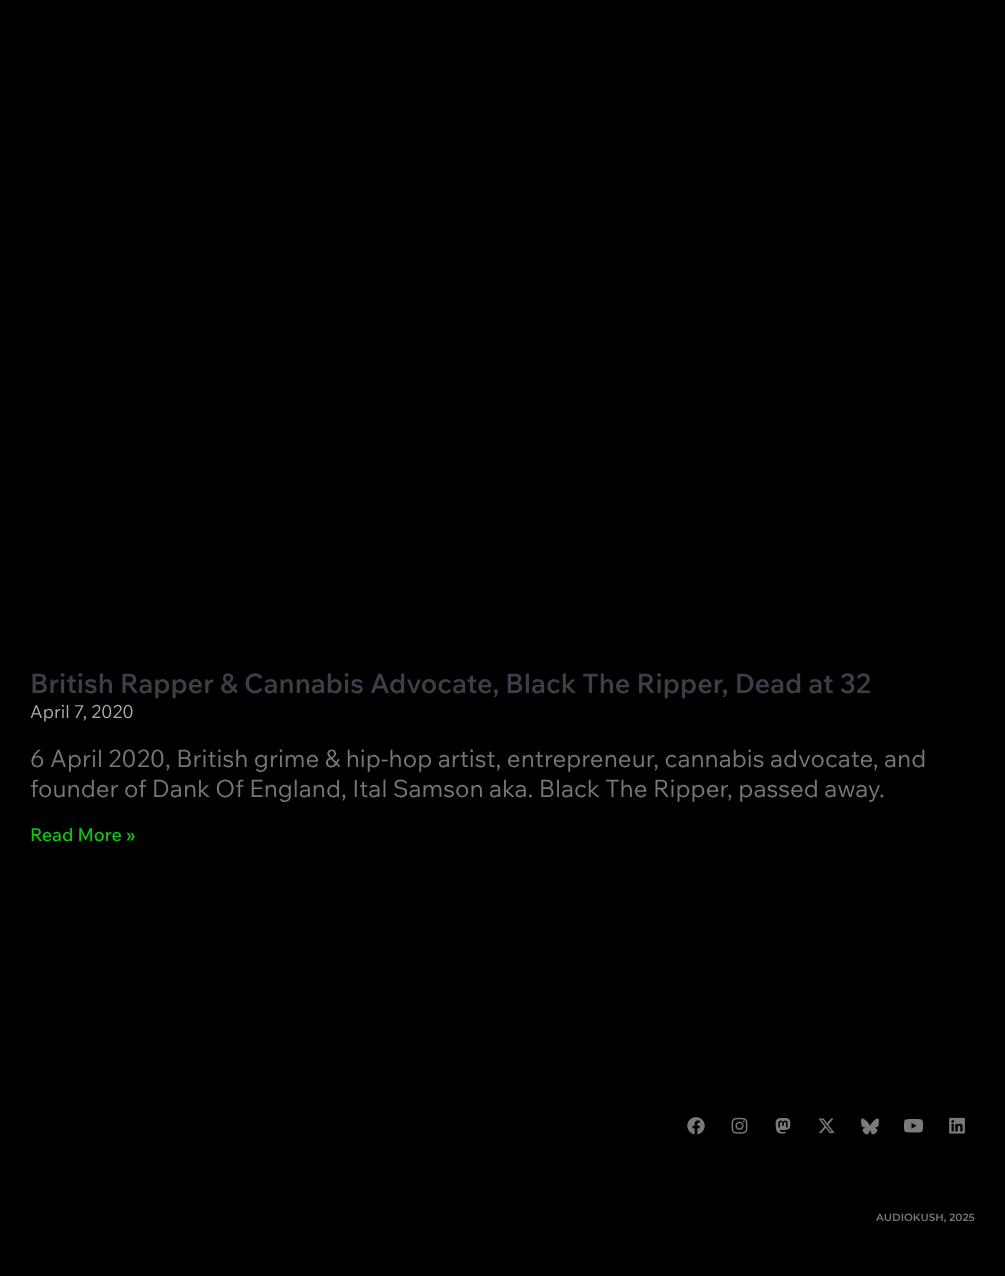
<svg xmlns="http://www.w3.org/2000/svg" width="1005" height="1276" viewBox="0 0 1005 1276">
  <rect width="100%" height="100%" fill="#000"/>
  <image x="687" y="1117" width="18" height="18" href="img/1.png"/>
  <image x="731" y="1117" width="17" height="17" href="img/2.png"/>
  <image x="775" y="1117" width="16" height="17" href="img/3.png"/>
  <image x="818" y="1118" width="17" height="16" href="img/4.png"/>
  <image x="861" y="1118" width="18" height="17" href="img/5.png"/>
  <image x="903" y="1119" width="21" height="14" href="img/6.png"/>
  <image x="949" y="1117" width="16" height="17" href="img/7.png"/>
  <text x="30" y="693" font-family="Wix Madefor Text" font-size="27" font-weight="600" fill="#3e3e4b">British Rapper &amp; Cannabis Advocate, Black The Ripper, Dead at 32</text>
  <text x="30" y="718" font-family="Wix Madefor Text" font-size="18" fill="#adadad">April 7, 2020</text>
  <g font-family="Wix Madefor Text" font-size="24" fill="#777">
    <text x="30" y="767">6 April 2020, British grime &amp; hip-hop artist, entrepreneur, cannabis advocate, and</text>
    <text x="30" y="797">founder of Dank Of England, Ital Samson aka. Black The Ripper, passed away.</text>
  </g>
  <text x="30" y="841" font-family="Wix Madefor Text" font-size="18" font-weight="500" fill="#0fc612">Read More »</text>
  <text x="876" y="1221" font-family="Montserrat" font-size="10.5" font-weight="600" fill="#777">AUDIOKUSH, 2025</text>
</svg>
